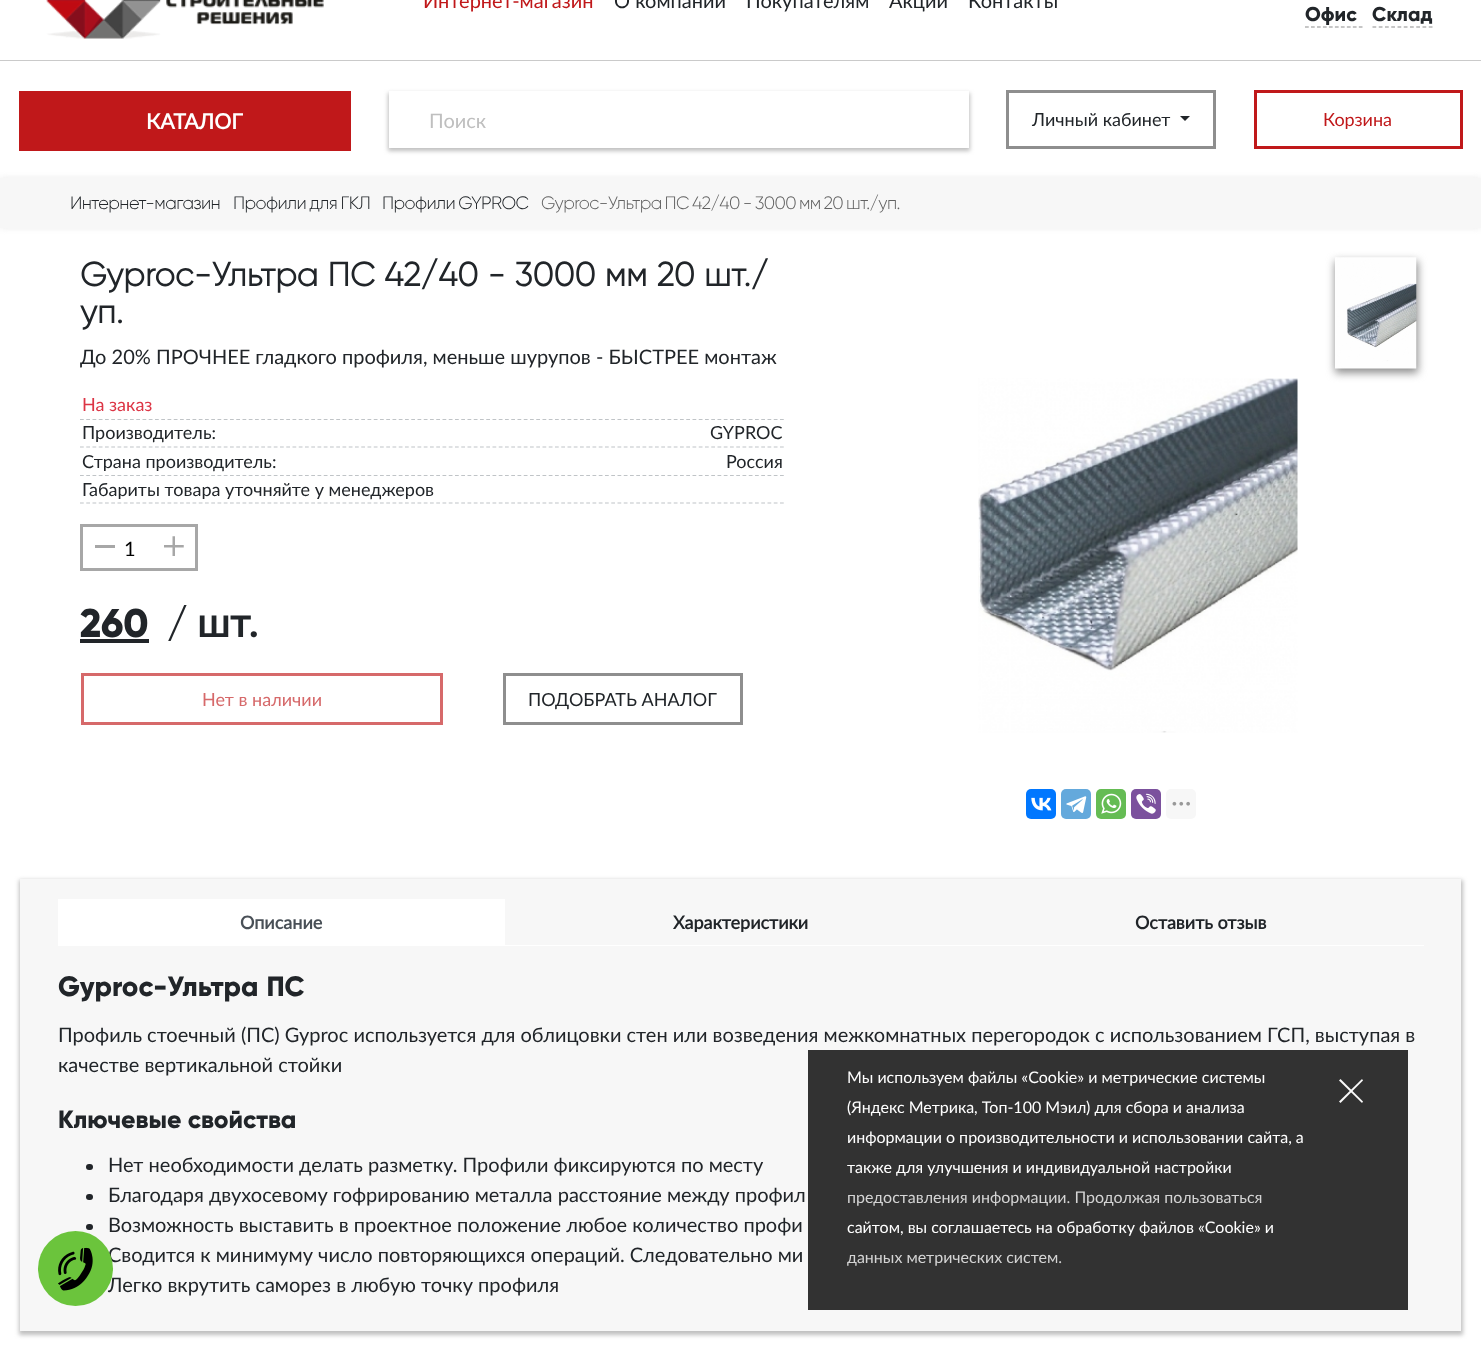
<svg xmlns="http://www.w3.org/2000/svg" width="1481" height="1350" viewBox="0 0 1481 1350">
  <rect width="100%" height="100%" fill="#fff"/>
  <image x="46" y="0" width="278" height="39" href="img/1.png"/>
  <path d="M1305 27H1362.5" fill="none" stroke="#8e8e8e" stroke-width="1.2" stroke-dasharray="3.75 2.23"/>
  <path d="M1372.5 27H1432.5" fill="none" stroke="#8e8e8e" stroke-width="1.2" stroke-dasharray="3.75 2.5"/>
  <path d="M0 60h1481v1H0z" fill="#cacaca"/>
  <path d="M19 91h332v60H19z" fill="#c0181a"/>
  <path d="M388 93h582v58H388z" fill="#bfbfbf" filter="blur(2px)"/>
  <path d="M389 91h580v57H389z" fill="#fff"/>
  <path d="M1007.5 91.5h207v56H1007.5z" fill="none" stroke="#8e8e8e" stroke-width="3"/>
  <path d="M1180 116H1190L1185 121Z" fill="#212529"/>
  <path d="M1255.5 91.5h206v56H1255.5z" fill="none" stroke="#c0181a" stroke-width="3"/>
  <path d="M0 178h1481v50H0z" fill="#ebebeb" filter="blur(3px)"/>
  <path d="M0 178h1481v50H0z" fill="#f7f7f7"/>
  <path d="M80 419.5H784" fill="none" stroke="#c0c4c7" stroke-width="1.2" stroke-dasharray="3.75 2.5"/>
  <path d="M80 447H784" fill="none" stroke="#c0c4c7" stroke-width="1.2" stroke-dasharray="3.75 2.5"/>
  <path d="M80 475.5H784" fill="none" stroke="#c0c4c7" stroke-width="1.2" stroke-dasharray="3.75 2.5"/>
  <path d="M80 503H784" fill="none" stroke="#c0c4c7" stroke-width="1.2" stroke-dasharray="3.75 2.5"/>
  <path d="M81.5 525.5h115v44H81.5z" fill="none" stroke="#a7a7a7" stroke-width="3"/>
  <path d="M95 545h20v3H95z" fill="#a7a7a7"/>
  <image x="164" y="536" width="20" height="20" href="img/2.png"/>
  <path d="M80 639h69v4H80z" fill="#212529"/>
  <path d="M82.5 674.5h359v49H82.5z" fill="none" stroke="#d6696a" stroke-width="3"/>
  <path d="M504.5 674.5h237v49H504.5z" fill="none" stroke="#8e8e8e" stroke-width="3"/>
  <path d="M1335 261h83v112H1335z" fill="#8e8e8e" filter="blur(4px)"/>
  <image x="1335" y="257" width="82" height="112" href="img/3.png"/>
  <image x="978" y="378" width="320" height="355" href="img/4.png"/>
  <rect x="1026" y="789" width="30" height="30" rx="5" fill="#07f"/>
  <image x="1031" y="797" width="21" height="14" href="img/5.png"/>
  <rect x="1061" y="789" width="30" height="30" rx="5" fill="#64a9dc"/>
  <image x="1066" y="796" width="21" height="17" href="img/6.png"/>
  <rect x="1096" y="789" width="30" height="30" rx="5" fill="#65bc54"/>
  <image x="1101" y="793" width="21" height="21" href="img/7.png"/>
  <rect x="1131" y="789" width="30" height="30" rx="5" fill="#7b519d"/>
  <image x="1136" y="793" width="20" height="21" href="img/8.png"/>
  <rect x="1166" y="789" width="30" height="30" rx="5" fill="#f7f7f7"/>
  <image x="1172" y="801" width="18" height="5" href="img/9.png"/>
  <path d="M19 880h1444v455H19z" fill="#bfbfbf" filter="blur(2px)"/>
  <path d="M20 879h1441v452H20z" fill="#f7f7f7"/>
  <path d="M505 945h919v1H505z" fill="#fff"/>
  <path d="M58 899h447v47H58z" fill="#fff"/>
  <rect x="86" y="1164" width="7" height="6" rx="3" fill="#212529"/>
  <rect x="86" y="1194" width="7" height="6" rx="3" fill="#212529"/>
  <rect x="86" y="1224" width="7" height="6" rx="3" fill="#212529"/>
  <path d="M808 1050h600v260H808z" fill="#000000cc"/>
  <path d="M1340.5 1079L1363 1101.5L1362 1103L1339 1080.5Z" fill="#fafafa"/>
  <path d="M1339 1101.5L1362 1079L1363 1080.5L1340.5 1103Z" fill="#fafafa"/>
  <text x="423" y="8" font-family="Lato" font-size="20" fill="#c0181a">Интернет-магазин</text>
  <g font-family="Lato" font-size="20" fill="#212529">
    <text x="614" y="8">О компании</text>
    <text x="746" y="8">Покупателям</text>
    <text x="889" y="8">Акции</text>
    <text x="968" y="8">Контакты</text>
  </g>
  <g font-family="Gilroy" font-size="20" font-weight="800" fill="#212529">
    <text x="1305" y="21">Офис</text>
    <text x="1372" y="21">Склад</text>
  </g>
  <text x="146" y="129" font-family="Lato" font-size="21.25" font-weight="bold" fill="#fff">КАТАЛОГ</text>
  <text x="429" y="128" font-family="Lato" font-size="20" fill="#bfbfbf">Поиск</text>
  <text x="1032" y="126" font-family="Lato" font-size="18" fill="#212529">Личный кабинет</text>
  <text x="1323" y="126" font-family="Lato" font-size="18" fill="#c0181a">Корзина</text>
  <g font-family="Gilroy" font-size="18" font-weight="300" letter-spacing="-0.6" fill="#212529">
    <text x="70" y="209">Интернет-магазин</text>
    <text x="233" y="209" word-spacing="-1">Профили для ГКЛ</text>
    <text x="382" y="209" word-spacing="-1">Профили GYPROC</text>
  </g>
  <text x="541" y="209" word-spacing="-1.25" font-family="Gilroy" font-size="18" font-weight="300" letter-spacing="-0.6" fill="#626262">Gyproc-Ультра ПC 42/40 - 3000 мм 20 шт./уп.</text>
  <g font-family="Gilroy" font-size="33.4" font-weight="bold" fill="#212529">
    <text x="80" y="286" word-spacing="0.25">Gyproc-Ультра ПC 42/40 - 3000 мм 20 шт./</text>
    <text x="80" y="323">уп.</text>
  </g>
  <text x="80" y="364" font-family="Lato" font-size="20" fill="#212529">До 20% ПРОЧНЕЕ гладкого профиля, меньше шурупов - БЫСТРЕЕ монтаж</text>
  <text x="82" y="411" font-family="Lato" font-size="18" fill="#dc3545">На заказ</text>
  <g font-family="Lato" font-size="18" fill="#212529">
    <text x="82" y="439">Производитель:</text>
    <text x="710" y="439">GYPROC</text>
    <text x="82" y="468">Страна производитель:</text>
    <text x="726" y="468">Россия</text>
    <text x="82" y="496">Габариты товара уточняйте у менеджеров</text>
  </g>
  <text x="124" y="556" font-family="Lato" font-size="20" fill="#000">1</text>
  <g font-family="Gilroy" font-size="40" font-weight="800" fill="#212529">
    <text x="80" y="637">260</text>
    <text x="167" y="637">/</text>
  </g>
  <text x="197" y="637" font-family="Lato" font-size="40" font-weight="bold" fill="#212529">шт.</text>
  <text x="202" y="706" font-family="Lato" font-size="18" fill="#d6696a">Нет в наличии</text>
  <text x="528" y="706" font-family="Lato" font-size="18" fill="#212529">ПОДОБРАТЬ АНАЛОГ</text>
  <text x="240" y="929" font-family="Lato" font-size="18" font-weight="bold" fill="#495057">Описание</text>
  <g font-family="Lato" font-size="18" font-weight="bold" fill="#212529">
    <text x="673" y="929">Характеристики</text>
    <text x="1135" y="929">Оставить отзыв</text>
  </g>
  <text x="58" y="996" word-spacing="1" font-family="Gilroy" font-size="28" font-weight="800" fill="#212529">Gyproc-Ультра ПC</text>
  <g font-family="Lato" font-size="20" fill="#212529">
    <text x="58" y="1042">Профиль стоечный (ПС) Gyproc используется для облицовки стен или возведения межкомнатных перегородок с использованием ГСП, выступая в</text>
    <text x="58" y="1072">качестве вертикальной стойки</text>
  </g>
  <text x="58" y="1128" font-family="Gilroy" font-size="25" font-weight="800" fill="#212529">Ключевые свойства</text>
  <g font-family="Lato" font-size="20" fill="#212529">
    <text x="108" y="1172">Нет необходимости делать разметку. Профили фиксируются по месту</text>
    <text x="108" y="1202">Благодаря двухосевому гофрированию металла расстояние между профил</text>
    <text x="108" y="1232">Возможность выставить в проектное положение любое количество профи</text>
    <text x="108" y="1262">Сводится к минимуму число повторяющихся операций. Следовательно ми</text>
    <text x="108" y="1292">Легко вкрутить саморез в любую точку профиля</text>
  </g>
  <circle cx="75.5" cy="1268.5" r="37.5" fill="#6bc43c"/>
  <image x="58" y="1247" width="35" height="44" href="img/10.png"/>
  <g font-family="Lato" font-size="16" fill="#fff">
    <text x="847" y="1083">Мы используем файлы «Cookie» и метрические системы</text>
    <text x="847" y="1113">(Яндекс Метрика, Топ-100 Мэил) для сбора и анализа</text>
    <text x="847" y="1143">информации о производительности и использовании сайта, а</text>
    <text x="847" y="1173">также для улучшения и индивидуальной настройки</text>
  </g>
  <text x="847" y="1203" font-family="Lato" font-size="16" fill="#d4d4d4">предоставления информации. Продолжая пользоваться</text>
  <text x="847" y="1233" font-family="Lato" font-size="16" fill="#fff">сайтом, вы соглашаетесь на обработку файлов «Cookie» и</text>
  <text x="847" y="1263" font-family="Lato" font-size="16" fill="#d4d4d4">данных метрических систем.</text>
</svg>
